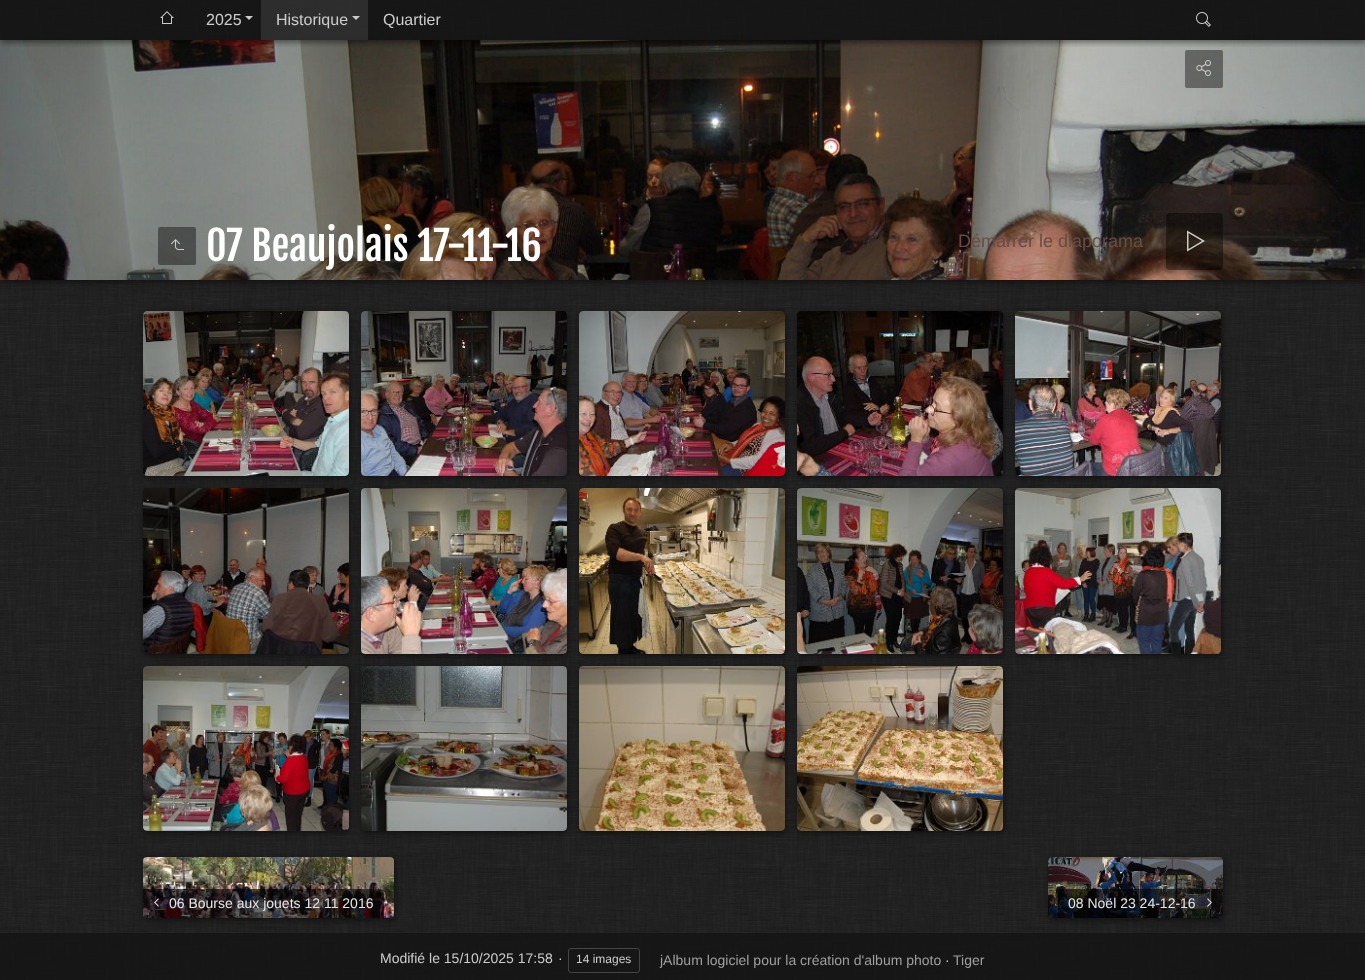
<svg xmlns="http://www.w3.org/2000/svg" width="1365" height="980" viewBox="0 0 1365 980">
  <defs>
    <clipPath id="clip1"><path d="M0 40h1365v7H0z"/></clipPath>
  </defs>
  <rect width="100%" height="100%" fill="#222"/>
  <image x="0" y="0" width="1365" height="980" href="img/1.png"/>
  <path d="M1 42h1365v240H1z" fill="#00000080" filter="blur(3px)"/>
  <image x="0" y="40" width="1365" height="240" href="img/4.png"/>
  <rect x="1185" y="50" width="38" height="38" rx="2" fill="#00000066"/>
  <g clip-path="url(#clip1)">
    <path d="M1 2h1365v40H1z" fill="#00000080" filter="blur(3px)"/>
  </g>
  <path d="M0 0h1365v40H0z" fill="#141414cc"/>
  <image x="160" y="11" width="14" height="13" href="img/2.png"/>
  <path d="M245 16H253L249 20Z" fill="#ccc"/>
  <path d="M261 0h107v40H261z" fill="#ffffff1a"/>
  <path d="M352 16H360L356 20Z" fill="#ccc"/>
  <image x="1196" y="12" width="15" height="15" href="img/3.png"/>
  <rect x="158" y="227" width="38" height="38" rx="2" fill="#00000066"/>
  <image x="171" y="239" width="13" height="11" href="img/5.png"/>
  <image x="1196" y="60" width="15" height="16" href="img/6.png"/>
  <rect x="1166" y="213" width="57" height="57" rx="4" fill="#00000066"/>
  <path d="M1188.5 233L1202 241L1188.5 249ZM1187 230.5V251.5L1205 241Z" fill="#ccc"/>
  <rect x="144" y="313" width="206" height="165" rx="4" fill="#00000080" filter="blur(3px)"/>
  <image x="143" y="311" width="206" height="165" href="img/7.png"/>
  <rect x="362" y="313" width="206" height="165" rx="4" fill="#00000080" filter="blur(3px)"/>
  <image x="361" y="311" width="206" height="165" href="img/8.png"/>
  <rect x="580" y="313" width="206" height="165" rx="4" fill="#00000080" filter="blur(3px)"/>
  <image x="579" y="311" width="206" height="165" href="img/9.png"/>
  <rect x="798" y="313" width="206" height="165" rx="4" fill="#00000080" filter="blur(3px)"/>
  <image x="797" y="311" width="206" height="165" href="img/10.png"/>
  <rect x="1016" y="313" width="206" height="165" rx="4" fill="#00000080" filter="blur(3px)"/>
  <image x="1015" y="311" width="206" height="165" href="img/11.png"/>
  <rect x="144" y="490" width="206" height="166" rx="4" fill="#00000080" filter="blur(3px)"/>
  <image x="143" y="488" width="206" height="166" href="img/12.png"/>
  <rect x="362" y="490" width="206" height="166" rx="4" fill="#00000080" filter="blur(3px)"/>
  <image x="361" y="488" width="206" height="166" href="img/13.png"/>
  <rect x="580" y="490" width="206" height="166" rx="4" fill="#00000080" filter="blur(3px)"/>
  <image x="579" y="488" width="206" height="166" href="img/14.png"/>
  <rect x="798" y="490" width="206" height="166" rx="4" fill="#00000080" filter="blur(3px)"/>
  <image x="797" y="488" width="206" height="166" href="img/15.png"/>
  <rect x="1016" y="490" width="206" height="166" rx="4" fill="#00000080" filter="blur(3px)"/>
  <image x="1015" y="488" width="206" height="166" href="img/16.png"/>
  <rect x="144" y="668" width="206" height="165" rx="4" fill="#00000080" filter="blur(3px)"/>
  <image x="143" y="666" width="206" height="165" href="img/17.png"/>
  <rect x="362" y="668" width="206" height="165" rx="4" fill="#00000080" filter="blur(3px)"/>
  <image x="361" y="666" width="206" height="165" href="img/18.png"/>
  <rect x="580" y="668" width="206" height="165" rx="4" fill="#00000080" filter="blur(3px)"/>
  <image x="579" y="666" width="206" height="165" href="img/19.png"/>
  <rect x="798" y="668" width="206" height="165" rx="4" fill="#00000080" filter="blur(3px)"/>
  <image x="797" y="666" width="206" height="165" href="img/20.png"/>
  <rect x="144" y="859" width="251" height="61" rx="4" fill="#00000080" filter="blur(3px)"/>
  <image x="143" y="857" width="251" height="61" href="img/21.png"/>
  <path d="M143 889H380C382 889 384 891 384 893V918H147C145 918 143 916 143 914Z" fill="#00000099"/>
  <image x="154" y="898" width="5" height="9" href="img/22.png"/>
  <rect x="1049" y="859" width="175" height="61" rx="4" fill="#00000080" filter="blur(3px)"/>
  <image x="1048" y="857" width="175" height="61" href="img/23.png"/>
  <path d="M1062 889H1223V914C1223 916 1221 918 1219 918H1058V893C1058 891 1060 889 1062 889Z" fill="#00000099"/>
  <image x="1207" y="898" width="5" height="9" href="img/24.png"/>
  <path d="M0 933h1365v47H0z" fill="#141414cc"/>
  <rect x="568.5" y="948.5" width="71" height="24" rx="2.5" fill="none" stroke="#444"/>
  <g font-family="Liberation Sans" font-size="16" fill="#ccc">
    <text x="206" y="25">2025</text>
    <text x="276" y="25">Historique</text>
    <text x="383" y="25">Quartier</text>
  </g>
  <text x="206" y="261" font-family="Fjalla One" font-size="40" fill="#fff">07 Beaujolais 17-11-16</text>
  <text x="958" y="247" font-family="Liberation Sans" font-size="18" fill="#674d43">Démarrer le diaporama</text>
  <g font-family="Liberation Sans" font-size="14" fill="#e6e6e6">
    <text x="169" y="908">06 Bourse aux jouets 12 11 2016</text>
    <text x="1068" y="908">08 Noël 23 24-12-16</text>
  </g>
  <g font-family="Liberation Sans" font-size="14" fill="#ccc">
    <text x="380" y="963">Modifié le 15/10/2025 17:58</text>
    <text x="558" y="963">·</text>
  </g>
  <text x="576" y="963" font-family="Liberation Sans" font-size="12" fill="#ccc">14 images</text>
  <text x="660" y="965" font-family="Liberation Sans" font-size="14" fill="#9f9f9f">jAlbum logiciel pour la création d'album photo</text>
  <text x="945" y="965" font-family="Liberation Sans" font-size="14" fill="#ccc">·</text>
  <text x="953" y="965" font-family="Liberation Sans" font-size="14" fill="#9f9f9f">Tiger</text>
</svg>
